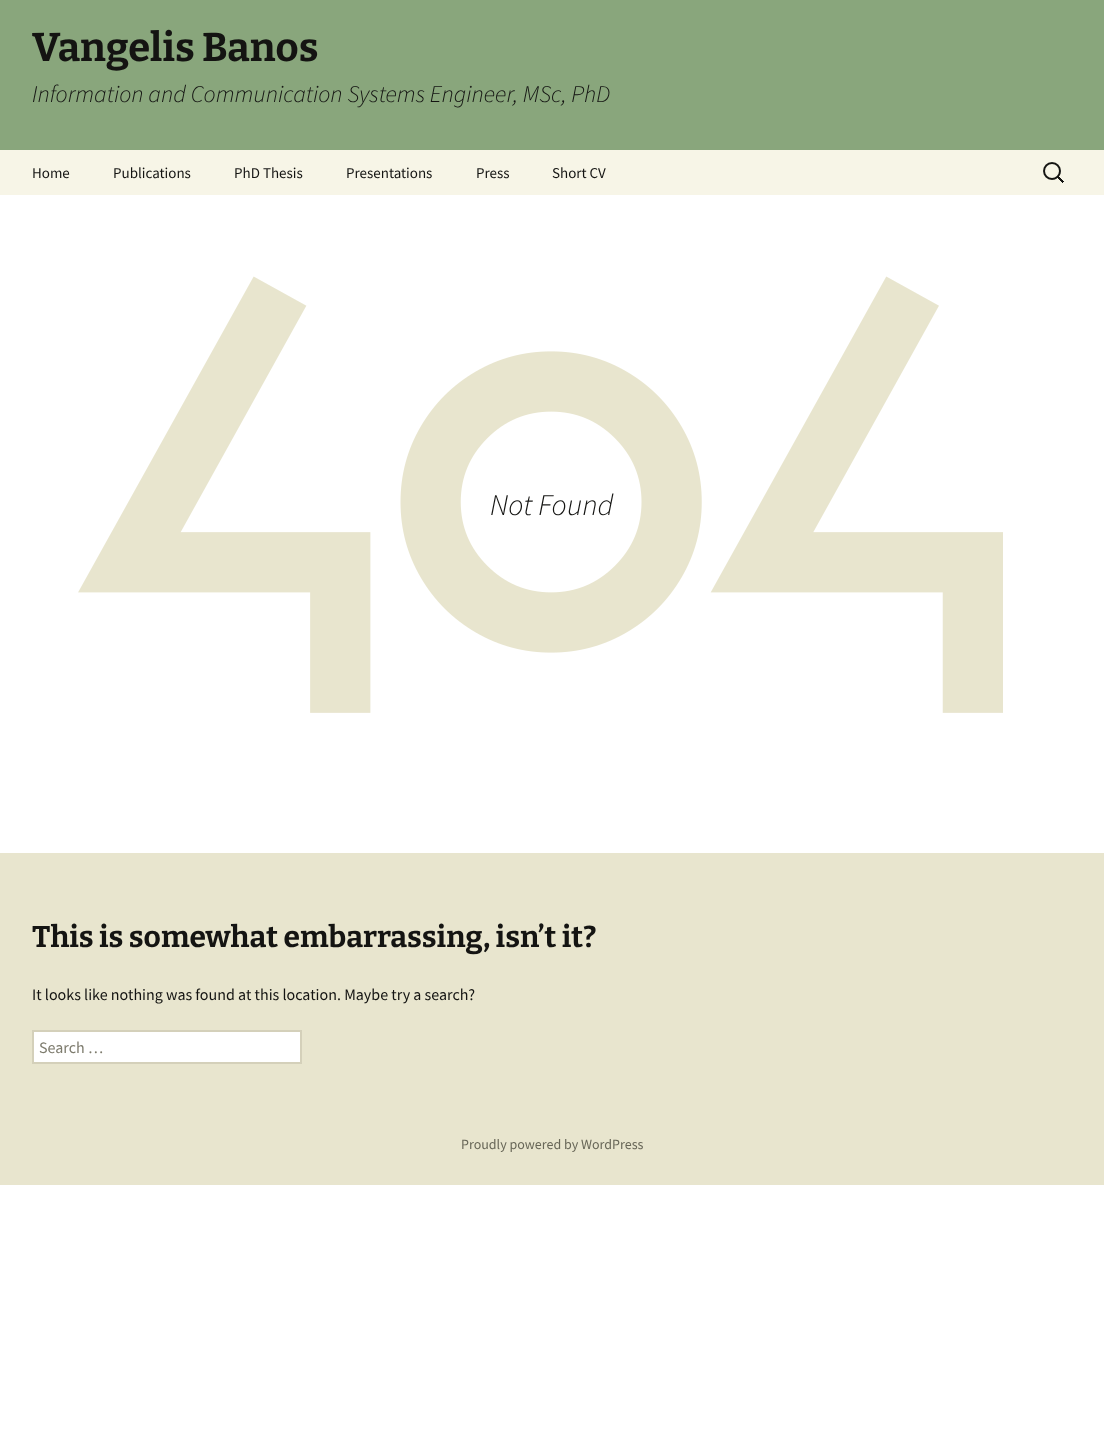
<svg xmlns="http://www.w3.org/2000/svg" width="1104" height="1449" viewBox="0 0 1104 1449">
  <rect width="100%" height="100%" fill="#fff"/>
  <path d="M0 0h1104v150H0z" fill="#89a67c"/>
  <path d="M0 150h1104v45H0z" fill="#f7f5e7"/>
  <image x="1043" y="162" width="21" height="21" href="img/1.png"/>
  <path d="M0 853h1104v332H0z" fill="#e8e5ce"/>
  <path d="M33 1031h268v32H33z" fill="#fff" stroke="#d4d0ba" stroke-width="2"/>
  <text x="32" y="61" font-family="Bitter" font-size="40" font-weight="100" fill="#141412">Vangelis Banos</text>
  <text x="32" y="102" font-family="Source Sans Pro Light" font-size="24" font-weight="300" font-style="italic" fill="#141412">Information and Communication Systems Engineer, MSc, PhD</text>
  <g font-family="Source Sans Pro" font-size="15" fill="#141412">
    <text x="32" y="178">Home</text>
    <text x="113" y="178">Publications</text>
    <text x="234" y="178">PhD Thesis</text>
    <text x="346" y="178">Presentations</text>
    <text x="476" y="178">Press</text>
    <text x="552" y="178">Short CV</text>
  </g>
  <text x="490" y="515" font-family="Source Sans Pro Light" font-size="30" font-weight="300" font-style="italic" fill="#141412">Not Found</text>
  <image x="78" y="276" width="925" height="437" href="img/2.png"/>
  <text x="32" y="947" font-family="Bitter" font-size="30" font-weight="100" fill="#141412">This is somewhat embarrassing, isn’t it?</text>
  <text x="32" y="1000" font-family="Source Sans Pro" font-size="16" fill="#141412">It looks like nothing was found at this location. Maybe try a search?</text>
  <text x="39" y="1053" font-family="Source Sans Pro" font-size="16" fill="#7d7b6d">Search …</text>
  <text x="461" y="1149" font-family="Source Sans Pro" font-size="14" fill="#686758">Proudly powered by WordPress</text>
</svg>
